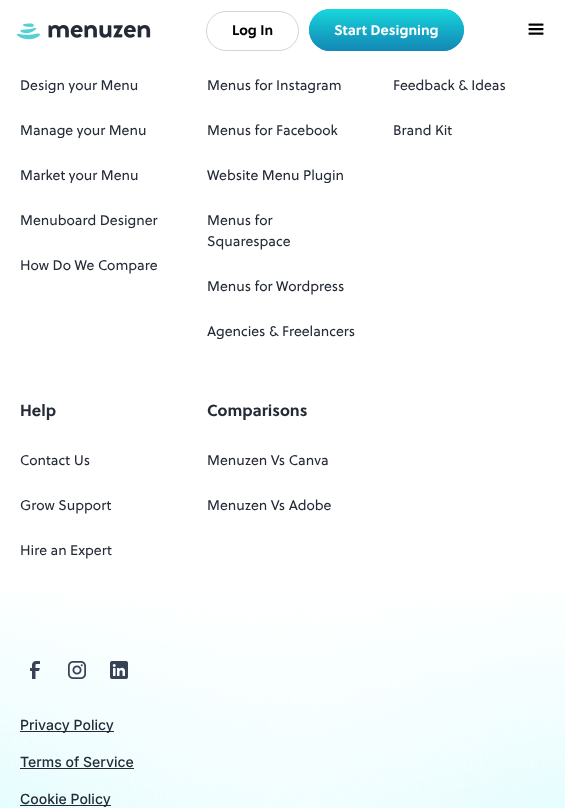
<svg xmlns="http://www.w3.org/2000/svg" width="565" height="808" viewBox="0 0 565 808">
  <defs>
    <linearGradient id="g1" gradientUnits="userSpaceOnUse" x1="387" y1="9" x2="387" y2="51"><stop offset="0" stop-color="#16dadd"/><stop offset="1" stop-color="#0b84aa" stop-opacity="0.82"/></linearGradient>
  </defs>
  <rect width="100%" height="100%" fill="#fff"/>
  <image x="16" y="23" width="135" height="17" href="img/1.png"/>
  <rect x="206.5" y="11.5" width="92" height="39" rx="19.5" fill="none" stroke="#d3d4d7"/>
  <rect x="309" y="9" width="155" height="42" rx="21" fill="#3898ec"/>
  <rect x="309" y="9" width="155" height="42" rx="21" fill="url(#g1)"/>
  <image x="528" y="23" width="16" height="12" href="img/2.png"/>
  <image x="0" y="590" width="565" height="218" href="img/3.png"/>
  <image x="30" y="661" width="10" height="18" href="img/4.png"/>
  <image x="68" y="661" width="18" height="18" href="img/5.png"/>
  <image x="110" y="661" width="18" height="18" href="img/6.png"/>
  <path d="M20 731h94v1H20z" fill="#242a36"/>
  <path d="M20 768h114v1H20z" fill="#242a36"/>
  <path d="M20 805h91v1H20z" fill="#242a36"/>
  <text x="232" y="35" font-family="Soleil" font-size="14" font-weight="bold" fill="#000">Log In</text>
  <text x="334" y="35" font-family="Soleil" font-size="14" font-weight="bold" fill="#fff">Start Designing</text>
  <g font-family="Soleil" font-size="14" fill="#242a36">
    <text x="20" y="90">Design your Menu</text>
    <text x="20" y="135">Manage your Menu</text>
    <text x="20" y="180">Market your Menu</text>
    <text x="20" y="225">Menuboard Designer</text>
    <text x="20" y="270">How Do We Compare</text>
    <text x="207" y="90">Menus for Instagram</text>
    <text x="207" y="135">Menus for Facebook</text>
    <text x="207" y="180">Website Menu Plugin</text>
    <text x="207" y="225">Menus for</text>
    <text x="207" y="246">Squarespace</text>
    <text x="207" y="291">Menus for Wordpress</text>
    <text x="207" y="336">Agencies &amp; Freelancers</text>
    <text x="393" y="90">Feedback &amp; Ideas</text>
    <text x="393" y="135">Brand Kit</text>
  </g>
  <text x="20" y="416" font-family="Soleil" font-size="16" font-weight="bold" fill="#242a36">Help</text>
  <g font-family="Soleil" font-size="14" fill="#242a36">
    <text x="20" y="465">Contact Us</text>
    <text x="20" y="510">Grow Support</text>
    <text x="20" y="555">Hire an Expert</text>
  </g>
  <text x="207" y="416" font-family="Soleil" font-size="16" font-weight="bold" fill="#242a36">Comparisons</text>
  <g font-family="Soleil" font-size="14" fill="#242a36">
    <text x="207" y="465">Menuzen Vs Canva</text>
    <text x="207" y="510">Menuzen Vs Adobe</text>
  </g>
  <g font-family="Inter" font-size="14" font-weight="500" fill="#242a36">
    <text x="20" y="730">Privacy Policy</text>
    <text x="20" y="767">Terms of Service</text>
    <text x="20" y="804">Cookie Policy</text>
  </g>
</svg>
